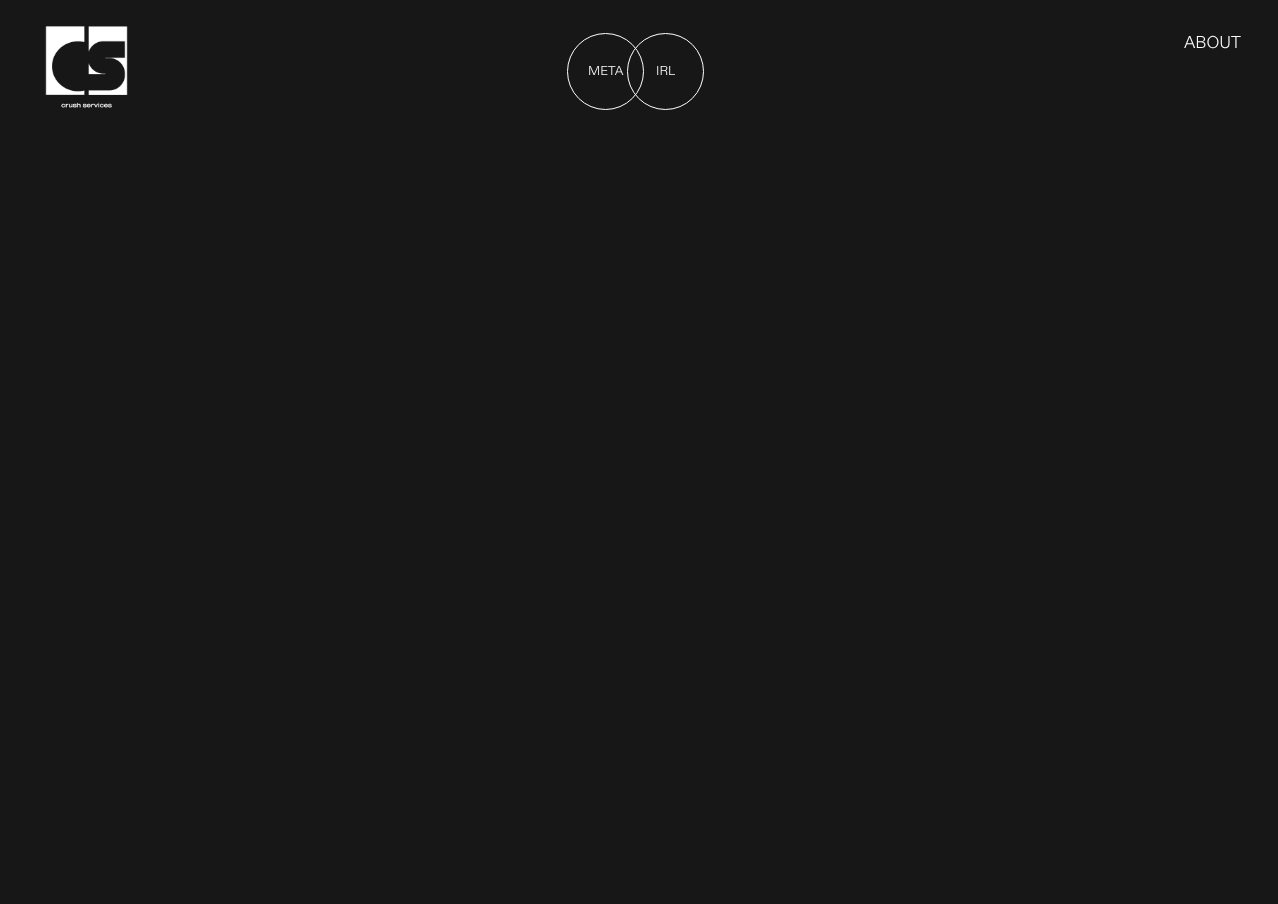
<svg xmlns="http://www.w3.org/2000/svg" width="1278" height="904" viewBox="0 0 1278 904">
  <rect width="100%" height="100%" fill="#171717"/>
  <image x="45" y="26" width="83" height="82" href="img/1.png"/>
  <circle cx="605.5" cy="71.5" r="38" fill="none" stroke="#fff"/>
  <circle cx="665.5" cy="71.5" r="38" fill="none" stroke="#fff"/>
  <text x="1184" y="48" font-family="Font" font-size="17" font-weight="300" fill="#fbfbfb">ABOUT</text>
  <g font-family="Font" font-size="13" font-weight="300" fill="#fbfbfb">
    <text x="588" y="75">META</text>
    <text x="656" y="75">IRL</text>
  </g>
</svg>
